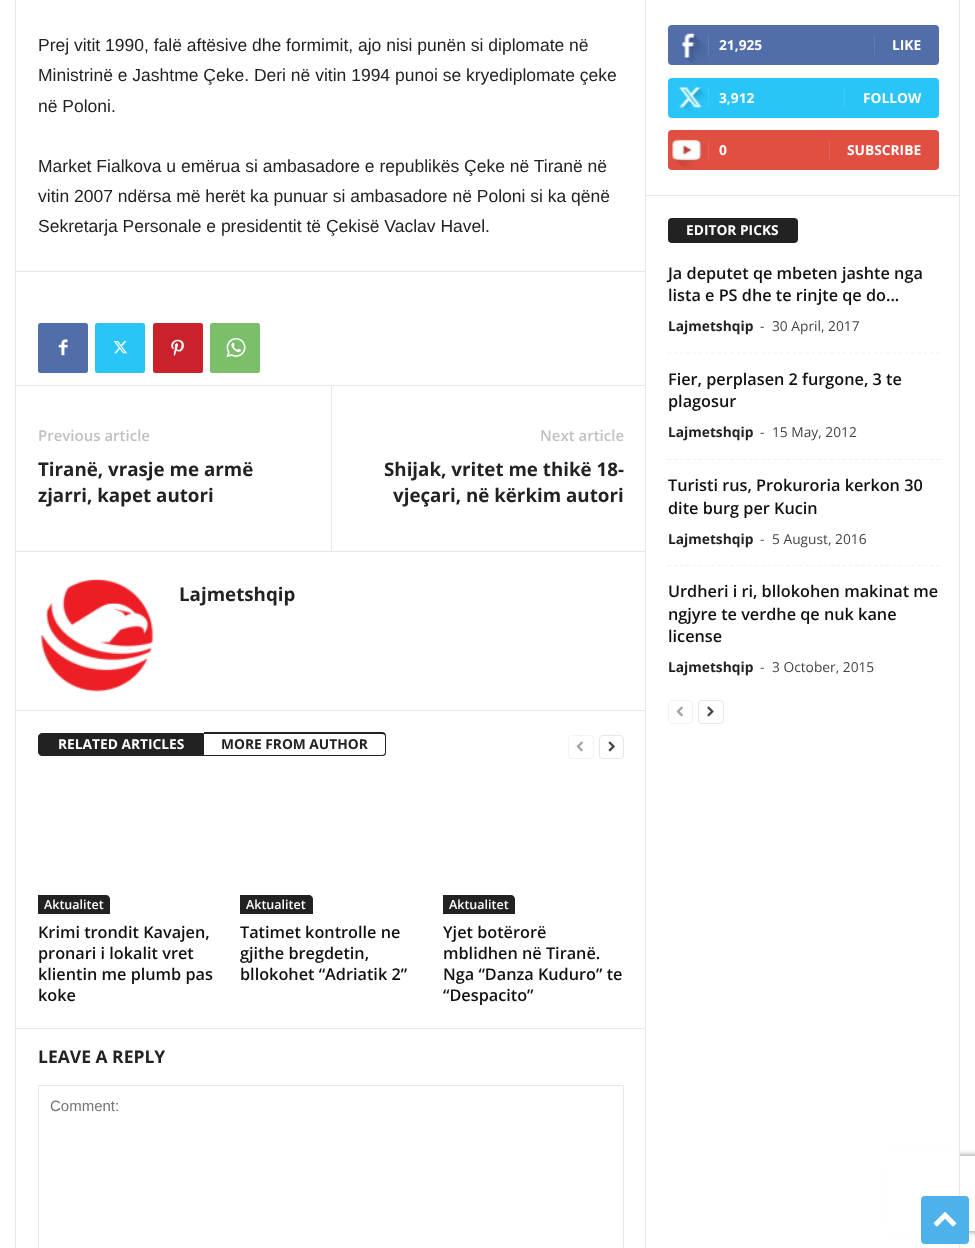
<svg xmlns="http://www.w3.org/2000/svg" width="975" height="1248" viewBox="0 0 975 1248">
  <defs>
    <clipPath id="clip1"><path d="M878 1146H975V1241H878ZM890.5 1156H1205.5C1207 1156 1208 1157 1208 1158.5V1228.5C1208 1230 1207 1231 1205.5 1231H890.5C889 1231 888 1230 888 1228.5V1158.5C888 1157 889 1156 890.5 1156Z" clip-rule="evenodd"/></clipPath>
  </defs>
  <rect width="100%" height="100%" fill="#fff"/>
  <g clip-path="url(#clip1)">
    <rect x="888" y="1156" width="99" height="75" rx="2.5" fill="#808080" filter="blur(3px)"/>
  </g>
  <path d="M882 1150h77v87H882z" fill="#fff"/>
  <path d="M15 0h1v1248H15z" fill="#e6e6e6"/>
  <path d="M16 271h629v1H16z" fill="#e6e6e6"/>
  <rect x="38" y="323" width="50" height="50" rx="2.5" fill="#516eab"/>
  <image x="58" y="339" width="10" height="17" href="img/1.png"/>
  <rect x="95" y="323" width="50" height="50" rx="2.5" fill="#29c5f6"/>
  <image x="113" y="341" width="15" height="13" href="img/2.png"/>
  <rect x="153" y="323" width="50" height="50" rx="2.5" fill="#ca212a"/>
  <image x="171" y="339" width="13" height="17" href="img/3.png"/>
  <rect x="210" y="323" width="50" height="50" rx="2.5" fill="#7bbf6a"/>
  <image x="226" y="338" width="20" height="20" href="img/4.png"/>
  <path d="M16 385h629v1H16z" fill="#e6e6e6"/>
  <path d="M331 386h1v165H331z" fill="#e6e6e6"/>
  <path d="M16 551h629v1H16z" fill="#e6e6e6"/>
  <image x="41" y="578" width="113" height="114" href="img/5.png"/>
  <path d="M16 710h629v1H16z" fill="#e6e6e6"/>
  <path d="M42 733.5H203.5V755.5H42C40 755.5 38.5 754 38.5 752V737C38.5 735 40 733.5 42 733.5Z" fill="#222" stroke="#222"/>
  <path d="M204 732H382C385 732 386 734 386 736V752C386 755 385 756 382 756H204ZM204 734H382C384 734 385 735 385 736V752C385 754 384 755 382 755H204Z" fill="#222" fill-rule="evenodd"/>
  <rect x="568.5" y="735.5" width="25" height="23" rx="3.5" fill="none" stroke="#f3f3f3"/>
  <image x="576" y="741" width="7" height="11" href="img/6.png"/>
  <rect x="599.5" y="735.5" width="24" height="23" rx="3.5" fill="none" stroke="#e6e6e6"/>
  <image x="608" y="741" width="7" height="11" href="img/7.png"/>
  <path d="M38 895H106C108 895 110 897 110 899V914H38Z" fill="#222"/>
  <path d="M240 895H309C311 895 313 897 313 899V914H240Z" fill="#222"/>
  <path d="M443 895H511C513 895 515 897 515 899V914H443Z" fill="#222"/>
  <path d="M16 1028h629v1H16z" fill="#e6e6e6"/>
  <path d="M38.5 1085.5h585v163H38.5z" fill="none" stroke="#e6e6e6"/>
  <path d="M645 0h1v1248H645z" fill="#e6e6e6"/>
  <rect x="668" y="25" width="271" height="40" rx="4" fill="#516eab"/>
  <image x="681" y="33" width="26" height="32" href="img/8.png"/>
  <path d="M708 35h1v20H708z" fill="#627db3"/>
  <path d="M874 35h1v20H874z" fill="#627db3"/>
  <rect x="668" y="78" width="271" height="40" rx="4" fill="#29c5f6"/>
  <image x="678" y="87" width="29" height="25" href="img/9.png"/>
  <path d="M708 88h1v20H708z" fill="#3ecbf7"/>
  <path d="M844 88h1v20H844z" fill="#3ecbf7"/>
  <rect x="668" y="130" width="271" height="40" rx="4" fill="#e14e42"/>
  <image x="671" y="139" width="35" height="30" href="img/10.png"/>
  <path d="M708 140h1v20H708z" fill="#e46055"/>
  <path d="M829 140h1v20H829z" fill="#e46055"/>
  <path d="M959 0h1v1248H959z" fill="#e6e6e6"/>
  <path d="M646 195h314v1H646z" fill="#e6e6e6"/>
  <rect x="668" y="218" width="130" height="25" rx="4" fill="#222"/>
  <path d="M667.5 353H940" fill="none" stroke="#f1f1f1" stroke-width="1.2" stroke-dasharray="3.75 2.5"/>
  <path d="M667.5 459.5H940" fill="none" stroke="#f1f1f1" stroke-width="1.2" stroke-dasharray="3.75 2.5"/>
  <path d="M667.5 565.5H940" fill="none" stroke="#f1f1f1" stroke-width="1.2" stroke-dasharray="3.75 2.5"/>
  <rect x="668.5" y="700.5" width="24" height="23" rx="3.5" fill="none" stroke="#f3f3f3"/>
  <image x="676" y="706" width="7" height="11" href="img/6.png"/>
  <rect x="698.5" y="700.5" width="25" height="23" rx="3.5" fill="none" stroke="#e6e6e6"/>
  <image x="707" y="706" width="7" height="11" href="img/11.png"/>
  <rect x="921" y="1196" width="48" height="48" rx="4" fill="#4db2ec"/>
  <image x="933" y="1212" width="24" height="15" href="img/12.png"/>
  <g font-family="Liberation Sans" font-size="17.5" fill="#222">
    <text x="38" y="51">Prej vitit 1990, falë aftësive dhe formimit, ajo nisi punën si diplomate në</text>
    <text x="38" y="81">Ministrinë e Jashtme Çeke. Deri në vitin 1994 punoi se kryediplomate çeke</text>
    <text x="38" y="112">në Poloni.</text>
    <text x="38" y="172">Market Fialkova u emërua si ambasadore e republikës Çeke në Tiranë në</text>
    <text x="38" y="202">vitin 2007 ndërsa më herët ka punuar si ambasadore në Poloni si ka qënë</text>
    <text x="38" y="232">Sekretarja Personale e presidentit të Çekisë Vaclav Havel.</text>
  </g>
  <text x="38" y="441" font-family="Open Sans" font-size="15" font-weight="600" fill="#c1c1c1">Previous article</text>
  <g font-family="Open Sans" font-size="18.75" font-weight="bold" fill="#222">
    <text x="38" y="476">Tiranë, vrasje me armë</text>
    <text x="38" y="502">zjarri, kapet autori</text>
  </g>
  <text x="540" y="441" font-family="Open Sans" font-size="15" font-weight="600" fill="#c1c1c1">Next article</text>
  <g font-family="Open Sans" font-size="18.75" font-weight="bold" fill="#222">
    <text x="384" y="476">Shijak, vritet me thikë 18-</text>
    <text x="393" y="502">vjeçari, në kërkim autori</text>
    <text x="179" y="601">Lajmetshqip</text>
  </g>
  <text x="58" y="749" font-family="Open Sans" font-size="13.75" font-weight="bold" fill="#fff">RELATED ARTICLES</text>
  <text x="221" y="749" font-family="Open Sans" font-size="13.75" font-weight="bold" fill="#222">MORE FROM AUTHOR</text>
  <text x="44" y="909" font-family="Open Sans" font-size="12.5" font-weight="600" fill="#fff">Aktualitet</text>
  <g font-family="Open Sans" font-size="16.25" font-weight="600" fill="#111">
    <text x="38" y="938">Krimi trondit Kavajen,</text>
    <text x="38" y="959">pronari i lokalit vret</text>
    <text x="38" y="980">klientin me plumb pas</text>
    <text x="38" y="1001">koke</text>
  </g>
  <text x="246" y="909" font-family="Open Sans" font-size="12.5" font-weight="600" fill="#fff">Aktualitet</text>
  <g font-family="Open Sans" font-size="16.25" font-weight="600" fill="#111">
    <text x="240" y="938">Tatimet kontrolle ne</text>
    <text x="240" y="959">gjithe bregdetin,</text>
    <text x="240" y="980">bllokohet “Adriatik 2”</text>
  </g>
  <text x="449" y="909" font-family="Open Sans" font-size="12.5" font-weight="600" fill="#fff">Aktualitet</text>
  <g font-family="Open Sans" font-size="16.25" font-weight="600" fill="#111">
    <text x="443" y="938">Yjet botërorë</text>
    <text x="443" y="959">mblidhen në Tiranë.</text>
    <text x="443" y="980">Nga “Danza Kuduro” te</text>
    <text x="443" y="1001">“Despacito”</text>
  </g>
  <text x="38" y="1063" font-family="Open Sans" font-size="17.5" font-weight="bold" fill="#222">LEAVE A REPLY</text>
  <text x="50" y="1111" font-family="Liberation Sans" font-size="15" fill="#757575">Comment:</text>
  <g font-family="Open Sans" font-size="13.75" font-weight="bold" fill="#fff">
    <text x="719" y="50">21,925</text>
    <text x="892" y="50">LIKE</text>
    <text x="719" y="103">3,912</text>
    <text x="863" y="103">FOLLOW</text>
    <text x="719" y="155">0</text>
    <text x="847" y="155">SUBSCRIBE</text>
    <text x="686" y="235">EDITOR PICKS</text>
  </g>
  <g font-family="Open Sans" font-size="16.25" font-weight="600" fill="#111">
    <text x="668" y="279">Ja deputet qe mbeten jashte nga</text>
    <text x="668" y="301">lista e PS dhe te rinjte qe do...</text>
  </g>
  <text x="668" y="331" font-family="Open Sans" font-size="13.75" font-weight="bold" fill="#222">Lajmetshqip</text>
  <g font-family="Open Sans" font-size="13.75" fill="#444">
    <text x="760" y="331">-</text>
    <text x="772" y="331">30 April, 2017</text>
  </g>
  <g font-family="Open Sans" font-size="16.25" font-weight="600" fill="#111">
    <text x="668" y="385">Fier, perplasen 2 furgone, 3 te</text>
    <text x="668" y="407">plagosur</text>
  </g>
  <text x="668" y="437" font-family="Open Sans" font-size="13.75" font-weight="bold" fill="#222">Lajmetshqip</text>
  <g font-family="Open Sans" font-size="13.75" fill="#444">
    <text x="760" y="437">-</text>
    <text x="772" y="437">15 May, 2012</text>
  </g>
  <g font-family="Open Sans" font-size="16.25" font-weight="600" fill="#111">
    <text x="668" y="491">Turisti rus, Prokuroria kerkon 30</text>
    <text x="668" y="514">dite burg per Kucin</text>
  </g>
  <text x="668" y="544" font-family="Open Sans" font-size="13.75" font-weight="bold" fill="#222">Lajmetshqip</text>
  <g font-family="Open Sans" font-size="13.75" fill="#444">
    <text x="760" y="544">-</text>
    <text x="772" y="544">5 August, 2016</text>
  </g>
  <g font-family="Open Sans" font-size="16.25" font-weight="600" fill="#111">
    <text x="668" y="597">Urdheri i ri, bllokohen makinat me</text>
    <text x="668" y="620">ngjyre te verdhe qe nuk kane</text>
    <text x="668" y="642">license</text>
  </g>
  <text x="668" y="672" font-family="Open Sans" font-size="13.75" font-weight="bold" fill="#222">Lajmetshqip</text>
  <g font-family="Open Sans" font-size="13.75" fill="#444">
    <text x="760" y="672">-</text>
    <text x="772" y="672">3 October, 2015</text>
  </g>
</svg>
